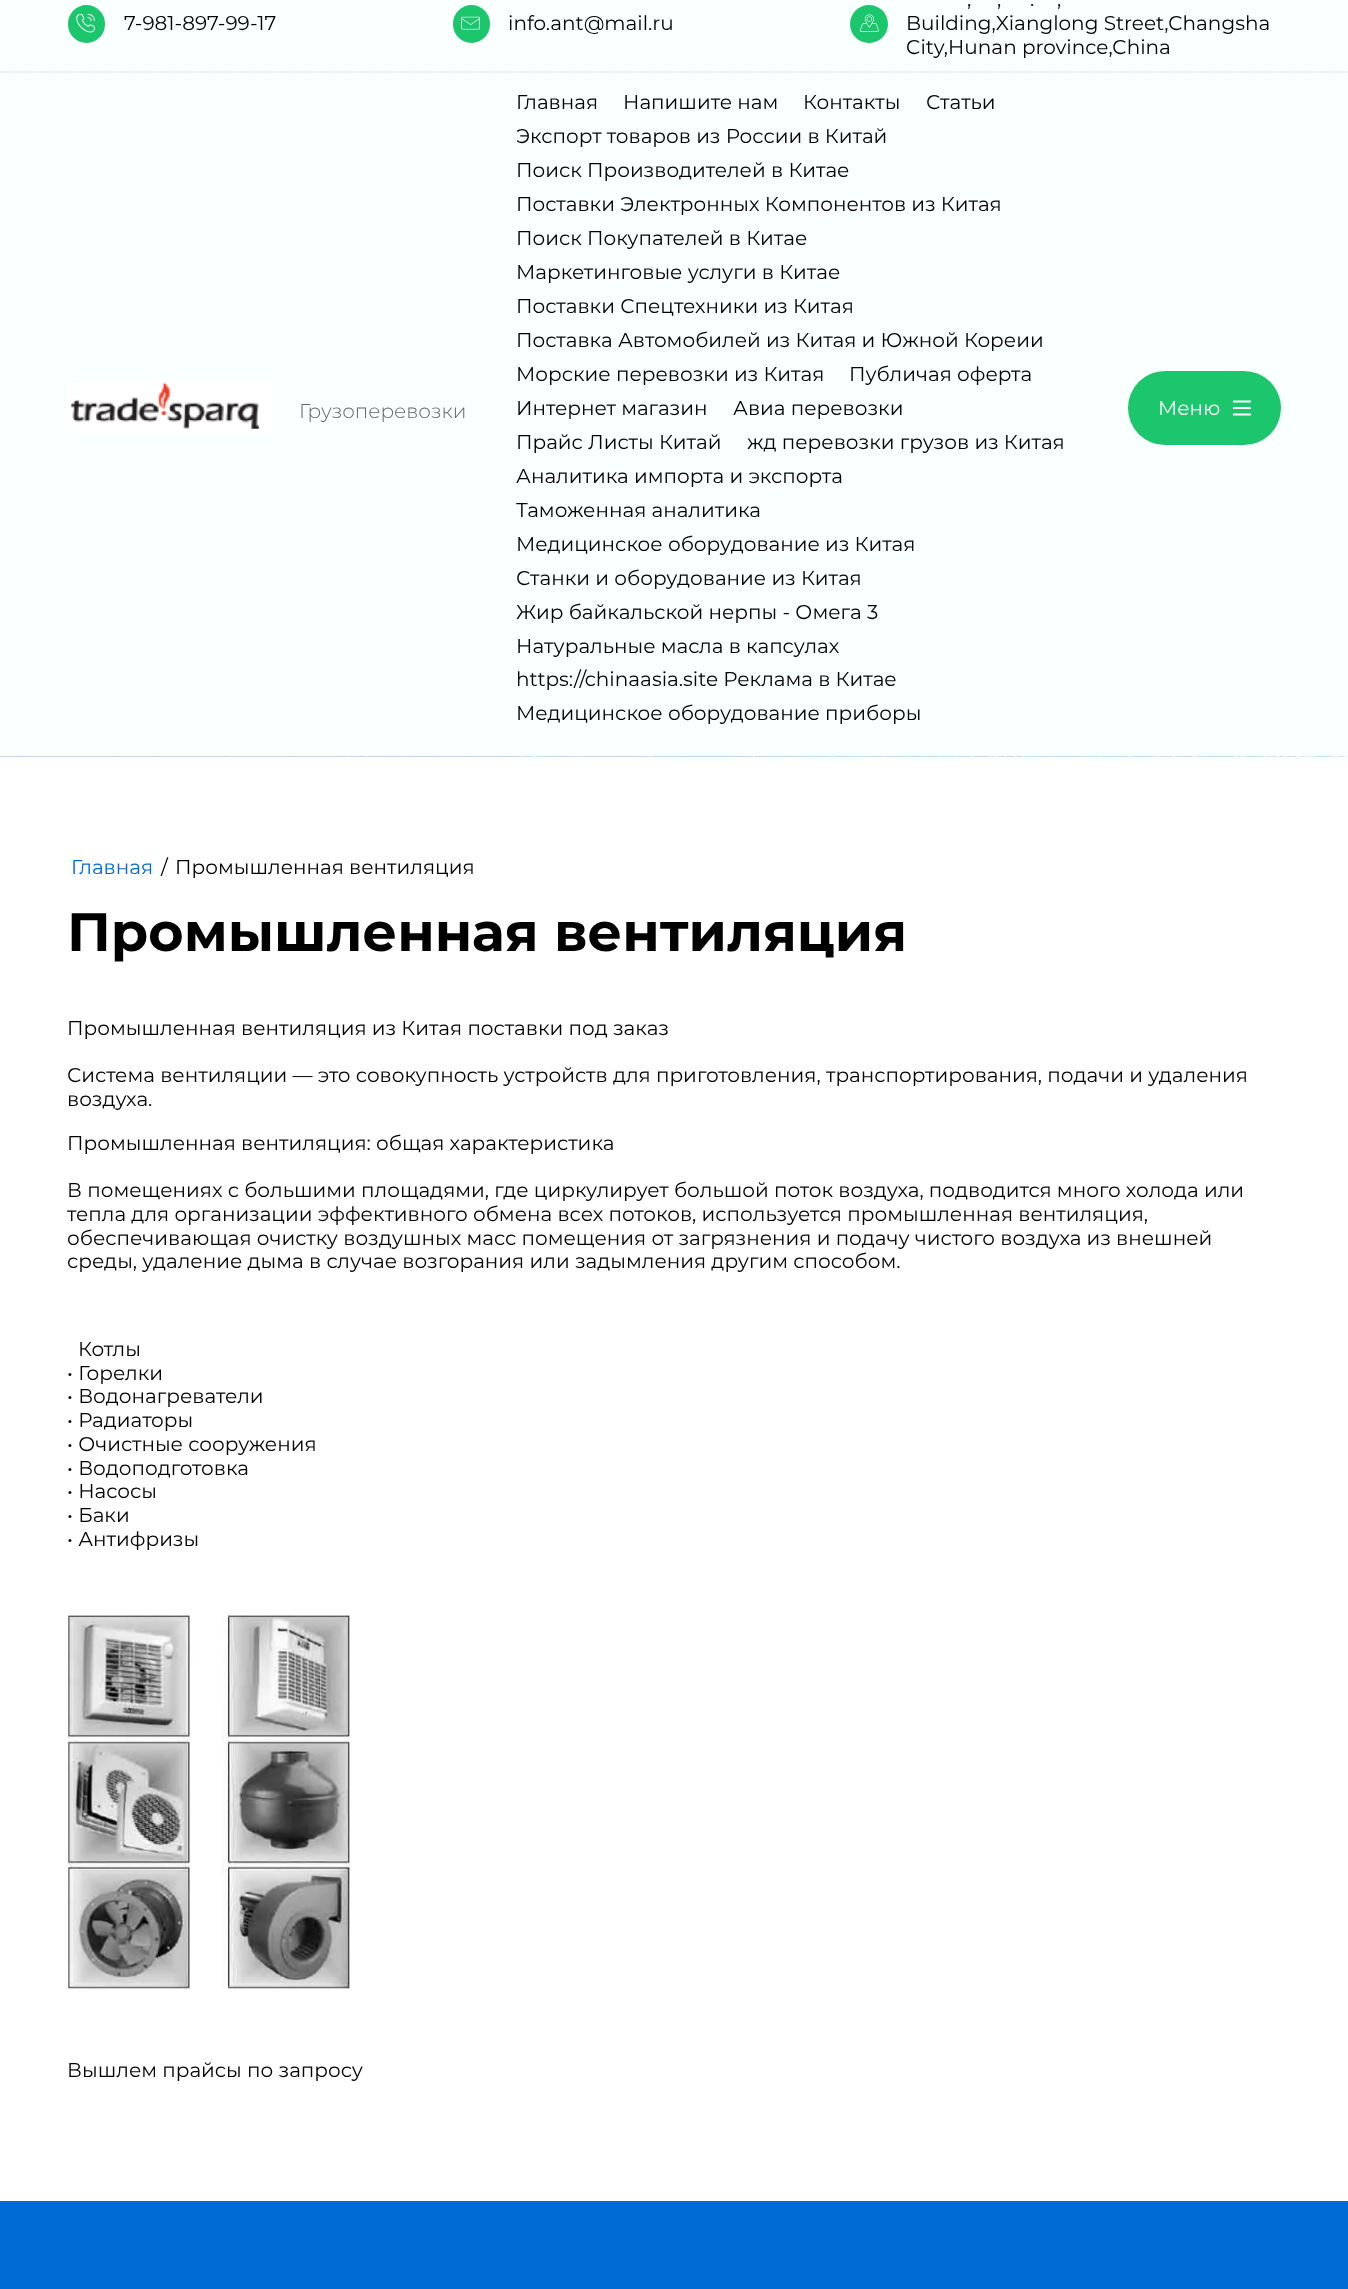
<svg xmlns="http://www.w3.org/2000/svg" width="1348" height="2289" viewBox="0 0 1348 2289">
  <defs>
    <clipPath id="clip1"><path d="M1233 399h18v19H1233z"/></clipPath>
  </defs>
  <rect width="100%" height="100%" fill="#fff"/>
  <image x="0" y="756" width="1348" height="1" href="img/1.png"/>
  <path d="M0 0h1348v756H0z" fill="#faffff"/>
  <rect x="68" y="5" width="37" height="38" rx="18.5" fill="#1cc66d"/>
  <image x="76" y="14" width="19" height="19" href="img/2.png"/>
  <rect x="453" y="5" width="37" height="38" rx="18.5" fill="#1cc66d"/>
  <image x="461" y="16" width="19" height="14" href="img/3.png"/>
  <circle cx="869" cy="24" r="19" fill="#1cc66d"/>
  <image x="860" y="14" width="19" height="18" href="img/4.png"/>
  <path d="M0 72H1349" fill="none" stroke="#c8cccc" stroke-width="1.2" stroke-dasharray="1.25 1.25"/>
  <image x="68" y="381" width="205" height="52" href="img/5.png"/>
  <rect x="1128" y="371" width="153" height="74" rx="37" fill="#1cc66d"/>
  <g clip-path="url(#clip1)">
    <path d="M1233.5 408H1250.5M1233.5 414.5H1250.5M1233.5 401.5H1250.5" fill="none" stroke="#fff" stroke-width="1.9" stroke-linecap="round" stroke-linejoin="round"/>
  </g>
  <image x="67" y="1614" width="283" height="375" href="img/6.png"/>
  <path d="M0 2201h1348v88H0z" fill="#006ad5"/>
  <g font-family="Montserrat" font-size="20" fill="#000">
    <text x="124" y="30">7-981-897-99-17</text>
    <text x="508" y="30">info.ant@mail.ru</text>
    <text x="967" y="6">,</text>
    <text x="997" y="6">,</text>
    <text x="1030" y="6">.</text>
    <text x="1057" y="6">,</text>
    <text x="906" y="30">Building,Xianglong Street,Changsha</text>
    <text x="906" y="54">City,Hunan province,China</text>
  </g>
  <text x="299" y="418" font-family="Montserrat" font-size="20" font-weight="300" fill="#666">Грузоперевозки</text>
  <g font-family="Montserrat" font-size="20" fill="#000">
    <text x="516" y="109">Главная</text>
    <text x="623" y="109">Напишите нам</text>
    <text x="803" y="109">Контакты</text>
    <text x="926" y="109">Статьи</text>
    <text x="516" y="143">Экспорт товаров из России в Китай</text>
    <text x="516" y="177">Поиск Производителей в Китае</text>
    <text x="516" y="211">Поставки Электронных Компонентов из Китая</text>
    <text x="516" y="245">Поиск Покупателей в Китае</text>
    <text x="516" y="279">Маркетинговые услуги в Китае</text>
    <text x="516" y="313">Поставки Спецтехники из Китая</text>
    <text x="516" y="347">Поставка Автомобилей из Китая и Южной Кореии</text>
    <text x="516" y="381">Морские перевозки из Китая</text>
    <text x="849" y="381">Публичая оферта</text>
    <text x="516" y="415">Интернет магазин</text>
    <text x="733" y="415">Авиа перевозки</text>
    <text x="516" y="449">Прайс Листы Китай</text>
    <text x="747" y="449">жд перевозки грузов из Китая</text>
    <text x="516" y="483">Аналитика импорта и экспорта</text>
    <text x="516" y="517">Таможенная аналитика</text>
    <text x="516" y="551">Медицинское оборудование из Китая</text>
    <text x="516" y="585">Станки и оборудование из Китая</text>
    <text x="516" y="619">Жир байкальской нерпы - Омега 3</text>
    <text x="516" y="653">Натуральные масла в капсулах</text>
    <text x="516" y="686">https://chinaasia.site Реклама в Китае</text>
    <text x="516" y="720">Медицинское оборудование приборы</text>
  </g>
  <text x="1158" y="415" font-family="Montserrat" font-size="20" fill="#fff">Меню</text>
  <text x="71" y="874" font-family="Montserrat" font-size="20" fill="#006ad5">Главная</text>
  <g font-family="Montserrat" font-size="20" fill="#000">
    <text x="161" y="874">/</text>
    <text x="175" y="874">Промышленная вентиляция</text>
  </g>
  <text x="67" y="951" font-family="Montserrat" font-size="54" font-weight="bold" fill="#000">Промышленная вентиляция</text>
  <g font-family="Montserrat" font-size="20" fill="#000">
    <text x="67" y="1035">Промышленная вентиляция из Китая поставки под заказ</text>
    <text x="67" y="1082">Система вентиляции — это совокупность устройств для приготовления, транспортирования, подачи и удаления</text>
    <text x="67" y="1106">воздуха.</text>
    <text x="67" y="1150">Промышленная вентиляция: общая характеристика</text>
    <text x="67" y="1197">В помещениях с большими площадями, где циркулирует большой поток воздуха, подводится много холода или</text>
    <text x="67" y="1221">тепла для организации эффективного обмена всех потоков, используется промышленная вентиляция,</text>
    <text x="67" y="1245">обеспечивающая очистку воздушных масс помещения от загрязнения и подачу чистого воздуха из внешней</text>
    <text x="67" y="1268">среды, удаление дыма в случае возгорания или задымления другим способом.</text>
    <text x="78" y="1356">Котлы</text>
    <text x="67" y="1380">• Горелки</text>
    <text x="67" y="1403">• Водонагреватели</text>
    <text x="67" y="1427">• Радиаторы</text>
    <text x="67" y="1451">• Очистные сооружения</text>
    <text x="67" y="1475">• Водоподготовка</text>
    <text x="67" y="1498">• Насосы</text>
    <text x="67" y="1522">• Баки</text>
    <text x="67" y="1546">• Антифризы</text>
    <text x="67" y="2077">Вышлем прайсы по запросу</text>
  </g>
</svg>
